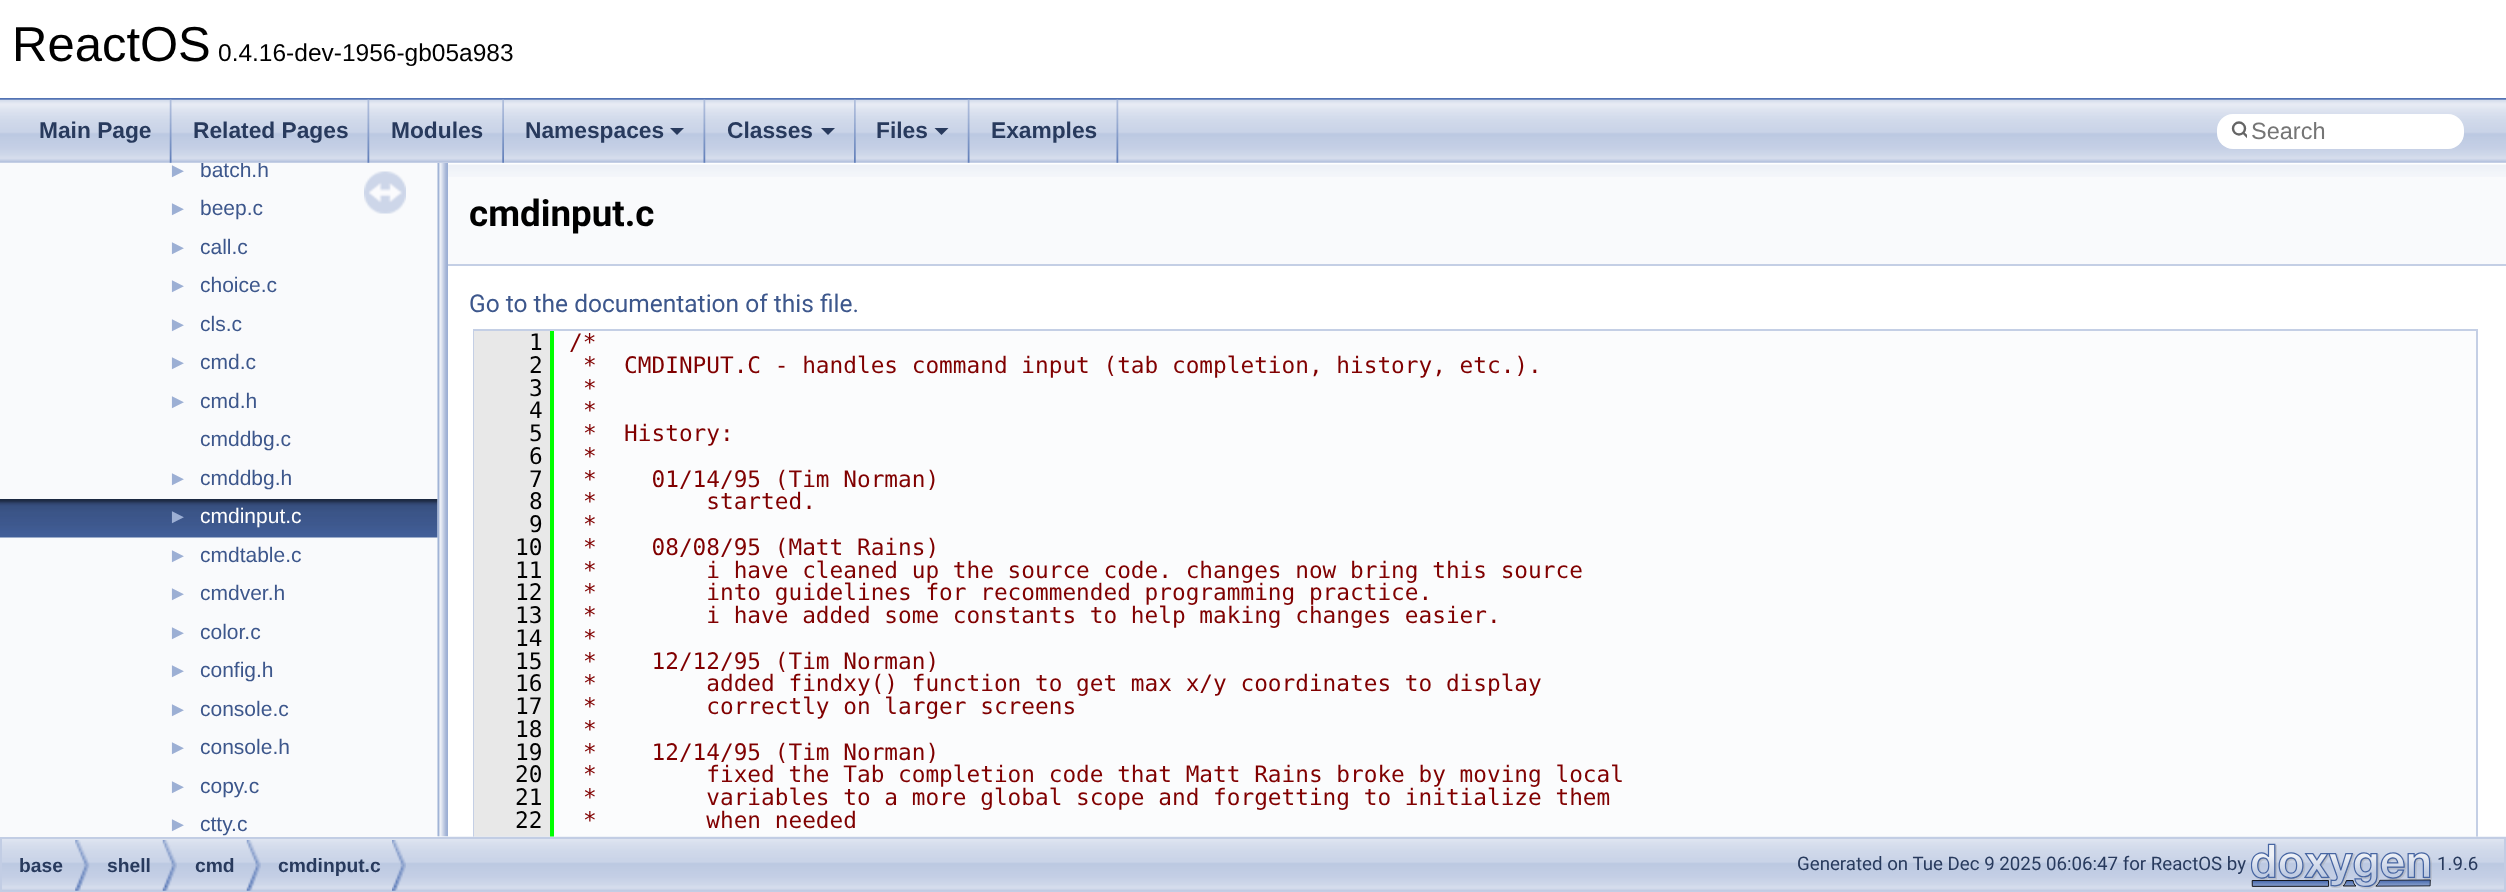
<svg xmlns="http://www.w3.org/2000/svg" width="2506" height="892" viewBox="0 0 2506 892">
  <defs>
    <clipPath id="clip1"><path d="M2230 114h17v33H2230z"/></clipPath>
    <clipPath id="clip2"><path d="M0 163h438v674H0z"/></clipPath>
  </defs>
  <rect width="100%" height="100%" fill="#fff"/>
  <path d="M0 98h2506v2H0z" fill="#5373b4"/>
  <path d="M554 331h1922v506H554z" fill="#fbfcfd"/>
  <path d="M474 330h2003v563H474z" fill="none" stroke="#c4cfe5" stroke-width="2"/>
  <path d="M550 331h4v502H550z" fill="#0f0"/>
  <path d="M474 830h79v7H474z" fill="#e8e8e8"/>
  <path d="M550 830h4v7H550z" fill="#0f0"/>
  <image x="2" y="836" width="2504" height="55" href="img/10.png"/>
  <path d="M0 163h438v674H0z" fill="#f9fafc"/>
  <image x="0" y="499" width="438" height="39" href="img/6.png"/>
  <image x="437" y="162" width="11" height="675" href="img/8.png"/>
  <image x="0" y="99" width="2506" height="64" href="img/1.png"/>
  <image x="169" y="99" width="3" height="64" href="img/2.png"/>
  <image x="367" y="99" width="3" height="64" href="img/3.png"/>
  <image x="502" y="99" width="2" height="64" href="img/4.png"/>
  <image x="703" y="99" width="3" height="64" href="img/3.png"/>
  <path d="M670 128H684L677 135Z" fill="#283a5d"/>
  <image x="854" y="99" width="2" height="64" href="img/5.png"/>
  <path d="M821 128H835L828 135Z" fill="#283a5d"/>
  <image x="967" y="99" width="3" height="64" href="img/2.png"/>
  <path d="M934.5 128H948.5L941.5 135Z" fill="#283a5d"/>
  <image x="1116" y="99" width="3" height="64" href="img/3.png"/>
  <rect x="2217" y="114" width="247" height="35" rx="16" fill="#fff"/>
  <circle cx="2239" cy="128.5" r="6" fill="none" stroke="#656565" stroke-width="2.4"/>
  <g clip-path="url(#clip1)">
    <path d="M2243.5 133L2248.5 138" fill="none" stroke="#656565" stroke-width="2.4" stroke-linecap="round"/>
  </g>
  <image x="364" y="171" width="42" height="43" href="img/7.png"/>
  <path d="M448 177h2058v87H448z" fill="#f9fafc"/>
  <image x="448" y="163" width="2058" height="14" href="img/9.png"/>
  <path d="M448 264h2058v2H448z" fill="#c4cfe5"/>
  <path d="M474 331h76v499H474z" fill="#e8e8e8"/>
  <path d="M1 838h2504v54H1z" fill="none" stroke="#c2cde4" stroke-width="2"/>
  <image x="75" y="840" width="15" height="51" href="img/11.png"/>
  <image x="162" y="840" width="15" height="51" href="img/12.png"/>
  <image x="246" y="840" width="15" height="51" href="img/13.png"/>
  <image x="392" y="840" width="14" height="51" href="img/14.png"/>
  <image x="2251" y="843" width="181" height="46" href="img/15.png"/>
  <text x="12" y="61" font-family="Liberation Sans" font-size="49" fill="#000">ReactOS</text>
  <text x="218" y="61" font-family="Liberation Sans" font-size="24.5" fill="#000">0.4.16-dev-1956-gb05a983</text>
  <g font-family="Liberation Sans" font-size="22.75" font-weight="bold" fill="#283a5d">
    <text x="39" y="138">Main Page</text>
    <text x="193" y="138">Related Pages</text>
    <text x="391" y="138">Modules</text>
    <text x="525" y="138">Namespaces</text>
    <text x="727" y="138">Classes</text>
    <text x="876" y="138">Files</text>
    <text x="991" y="138">Examples</text>
  </g>
  <text x="2251" y="139" font-family="Liberation Sans" font-size="23.5" fill="#757575">Search</text>
  <text x="168" y="177" font-family="Liberation Sans" font-size="20" fill="#9cafd4">►</text>
  <g clip-path="url(#clip2)">
    <text x="200" y="177" font-family="Liberation Sans" font-size="21" fill="#3d578c">batch.h</text>
  </g>
  <text x="168" y="215" font-family="Liberation Sans" font-size="20" fill="#9cafd4">►</text>
  <text x="200" y="215" font-family="Liberation Sans" font-size="21" fill="#3d578c">beep.c</text>
  <text x="168" y="254" font-family="Liberation Sans" font-size="20" fill="#9cafd4">►</text>
  <text x="200" y="254" font-family="Liberation Sans" font-size="21" fill="#3d578c">call.c</text>
  <text x="168" y="292" font-family="Liberation Sans" font-size="20" fill="#9cafd4">►</text>
  <text x="200" y="292" font-family="Liberation Sans" font-size="21" fill="#3d578c">choice.c</text>
  <text x="168" y="331" font-family="Liberation Sans" font-size="20" fill="#9cafd4">►</text>
  <text x="200" y="331" font-family="Liberation Sans" font-size="21" fill="#3d578c">cls.c</text>
  <text x="168" y="369" font-family="Liberation Sans" font-size="20" fill="#9cafd4">►</text>
  <text x="200" y="369" font-family="Liberation Sans" font-size="21" fill="#3d578c">cmd.c</text>
  <text x="168" y="408" font-family="Liberation Sans" font-size="20" fill="#9cafd4">►</text>
  <g font-family="Liberation Sans" font-size="21" fill="#3d578c">
    <text x="200" y="408">cmd.h</text>
    <text x="200" y="446">cmddbg.c</text>
  </g>
  <text x="168" y="485" font-family="Liberation Sans" font-size="20" fill="#9cafd4">►</text>
  <text x="200" y="485" font-family="Liberation Sans" font-size="21" fill="#3d578c">cmddbg.h</text>
  <text x="168" y="523" font-family="Liberation Sans" font-size="20" fill="#9cafd4">►</text>
  <text x="200" y="523" font-family="Liberation Sans" font-size="21" fill="#fff">cmdinput.c</text>
  <text x="168" y="562" font-family="Liberation Sans" font-size="20" fill="#9cafd4">►</text>
  <text x="200" y="562" font-family="Liberation Sans" font-size="21" fill="#3d578c">cmdtable.c</text>
  <text x="168" y="600" font-family="Liberation Sans" font-size="20" fill="#9cafd4">►</text>
  <text x="200" y="600" font-family="Liberation Sans" font-size="21" fill="#3d578c">cmdver.h</text>
  <text x="168" y="639" font-family="Liberation Sans" font-size="20" fill="#9cafd4">►</text>
  <text x="200" y="639" font-family="Liberation Sans" font-size="21" fill="#3d578c">color.c</text>
  <text x="168" y="677" font-family="Liberation Sans" font-size="20" fill="#9cafd4">►</text>
  <text x="200" y="677" font-family="Liberation Sans" font-size="21" fill="#3d578c">config.h</text>
  <text x="168" y="716" font-family="Liberation Sans" font-size="20" fill="#9cafd4">►</text>
  <text x="200" y="716" font-family="Liberation Sans" font-size="21" fill="#3d578c">console.c</text>
  <text x="168" y="754" font-family="Liberation Sans" font-size="20" fill="#9cafd4">►</text>
  <text x="200" y="754" font-family="Liberation Sans" font-size="21" fill="#3d578c">console.h</text>
  <text x="168" y="793" font-family="Liberation Sans" font-size="20" fill="#9cafd4">►</text>
  <text x="200" y="793" font-family="Liberation Sans" font-size="21" fill="#3d578c">copy.c</text>
  <text x="168" y="831" font-family="Liberation Sans" font-size="20" fill="#9cafd4">►</text>
  <text x="200" y="831" font-family="Liberation Sans" font-size="21" fill="#3d578c">ctty.c</text>
  <text x="469" y="226" font-family="Roboto" font-size="36.75" font-weight="bold" fill="#000">cmdinput.c</text>
  <text x="469" y="312" font-family="Roboto" font-size="24.5" fill="#3d578c">Go to the documentation of this file.</text>
  <text x="529" y="350" font-family="DejaVu Sans Mono" font-size="22.75" fill="#000">1</text>
  <text x="569" y="350" font-family="DejaVu Sans Mono" font-size="22.75" fill="#800000">/*</text>
  <text x="529" y="373" font-family="DejaVu Sans Mono" font-size="22.75" fill="#000">2</text>
  <text x="583" y="373" font-family="DejaVu Sans Mono" font-size="22.75" fill="#800000" xml:space="preserve">*  CMDINPUT.C - handles command input (tab completion, history, etc.).</text>
  <text x="529" y="396" font-family="DejaVu Sans Mono" font-size="22.75" fill="#000">3</text>
  <text x="583" y="396" font-family="DejaVu Sans Mono" font-size="22.75" fill="#800000">*</text>
  <text x="529" y="418" font-family="DejaVu Sans Mono" font-size="22.75" fill="#000">4</text>
  <text x="583" y="418" font-family="DejaVu Sans Mono" font-size="22.75" fill="#800000">*</text>
  <text x="529" y="441" font-family="DejaVu Sans Mono" font-size="22.75" fill="#000">5</text>
  <text x="583" y="441" font-family="DejaVu Sans Mono" font-size="22.75" fill="#800000" xml:space="preserve">*  History:</text>
  <text x="529" y="464" font-family="DejaVu Sans Mono" font-size="22.75" fill="#000">6</text>
  <text x="583" y="464" font-family="DejaVu Sans Mono" font-size="22.75" fill="#800000">*</text>
  <text x="529" y="487" font-family="DejaVu Sans Mono" font-size="22.75" fill="#000">7</text>
  <text x="583" y="487" font-family="DejaVu Sans Mono" font-size="22.75" fill="#800000" xml:space="preserve">*    01/14/95 (Tim Norman)</text>
  <text x="529" y="509" font-family="DejaVu Sans Mono" font-size="22.75" fill="#000">8</text>
  <text x="583" y="509" font-family="DejaVu Sans Mono" font-size="22.75" fill="#800000" xml:space="preserve">*        started.</text>
  <text x="529" y="532" font-family="DejaVu Sans Mono" font-size="22.75" fill="#000">9</text>
  <text x="583" y="532" font-family="DejaVu Sans Mono" font-size="22.75" fill="#800000">*</text>
  <text x="515" y="555" font-family="DejaVu Sans Mono" font-size="22.75" fill="#000">10</text>
  <text x="583" y="555" font-family="DejaVu Sans Mono" font-size="22.75" fill="#800000" xml:space="preserve">*    08/08/95 (Matt Rains)</text>
  <text x="515" y="578" font-family="DejaVu Sans Mono" font-size="22.75" fill="#000">11</text>
  <text x="583" y="578" font-family="DejaVu Sans Mono" font-size="22.75" fill="#800000" xml:space="preserve">*        i have cleaned up the source code. changes now bring this source</text>
  <text x="515" y="600" font-family="DejaVu Sans Mono" font-size="22.75" fill="#000">12</text>
  <text x="583" y="600" font-family="DejaVu Sans Mono" font-size="22.75" fill="#800000" xml:space="preserve">*        into guidelines for recommended programming practice.</text>
  <text x="515" y="623" font-family="DejaVu Sans Mono" font-size="22.75" fill="#000">13</text>
  <text x="583" y="623" font-family="DejaVu Sans Mono" font-size="22.75" fill="#800000" xml:space="preserve">*        i have added some constants to help making changes easier.</text>
  <text x="515" y="646" font-family="DejaVu Sans Mono" font-size="22.75" fill="#000">14</text>
  <text x="583" y="646" font-family="DejaVu Sans Mono" font-size="22.75" fill="#800000">*</text>
  <text x="515" y="669" font-family="DejaVu Sans Mono" font-size="22.75" fill="#000">15</text>
  <text x="583" y="669" font-family="DejaVu Sans Mono" font-size="22.75" fill="#800000" xml:space="preserve">*    12/12/95 (Tim Norman)</text>
  <text x="515" y="691" font-family="DejaVu Sans Mono" font-size="22.75" fill="#000">16</text>
  <text x="583" y="691" font-family="DejaVu Sans Mono" font-size="22.75" fill="#800000" xml:space="preserve">*        added findxy() function to get max x/y coordinates to display</text>
  <text x="515" y="714" font-family="DejaVu Sans Mono" font-size="22.75" fill="#000">17</text>
  <text x="583" y="714" font-family="DejaVu Sans Mono" font-size="22.75" fill="#800000" xml:space="preserve">*        correctly on larger screens</text>
  <text x="515" y="737" font-family="DejaVu Sans Mono" font-size="22.75" fill="#000">18</text>
  <text x="583" y="737" font-family="DejaVu Sans Mono" font-size="22.75" fill="#800000">*</text>
  <text x="515" y="760" font-family="DejaVu Sans Mono" font-size="22.75" fill="#000">19</text>
  <text x="583" y="760" font-family="DejaVu Sans Mono" font-size="22.75" fill="#800000" xml:space="preserve">*    12/14/95 (Tim Norman)</text>
  <text x="515" y="782" font-family="DejaVu Sans Mono" font-size="22.75" fill="#000">20</text>
  <text x="583" y="782" font-family="DejaVu Sans Mono" font-size="22.75" fill="#800000" xml:space="preserve">*        fixed the Tab completion code that Matt Rains broke by moving local</text>
  <text x="515" y="805" font-family="DejaVu Sans Mono" font-size="22.75" fill="#000">21</text>
  <text x="583" y="805" font-family="DejaVu Sans Mono" font-size="22.75" fill="#800000" xml:space="preserve">*        variables to a more global scope and forgetting to initialize them</text>
  <text x="515" y="828" font-family="DejaVu Sans Mono" font-size="22.75" fill="#000">22</text>
  <text x="583" y="828" font-family="DejaVu Sans Mono" font-size="22.75" fill="#800000" xml:space="preserve">*        when needed</text>
  <g font-family="Liberation Sans" font-size="19.25" font-weight="bold" fill="#283a5d">
    <text x="19" y="872">base</text>
    <text x="107" y="872">shell</text>
    <text x="195" y="872">cmd</text>
    <text x="278" y="872">cmdinput.c</text>
  </g>
  <g font-family="Roboto" font-size="18.7" fill="#283a5d">
    <text x="1797" y="870">Generated on Tue Dec 9 2025 06:06:47 for ReactOS by</text>
    <text x="2437" y="870">1.9.6</text>
  </g>
</svg>
